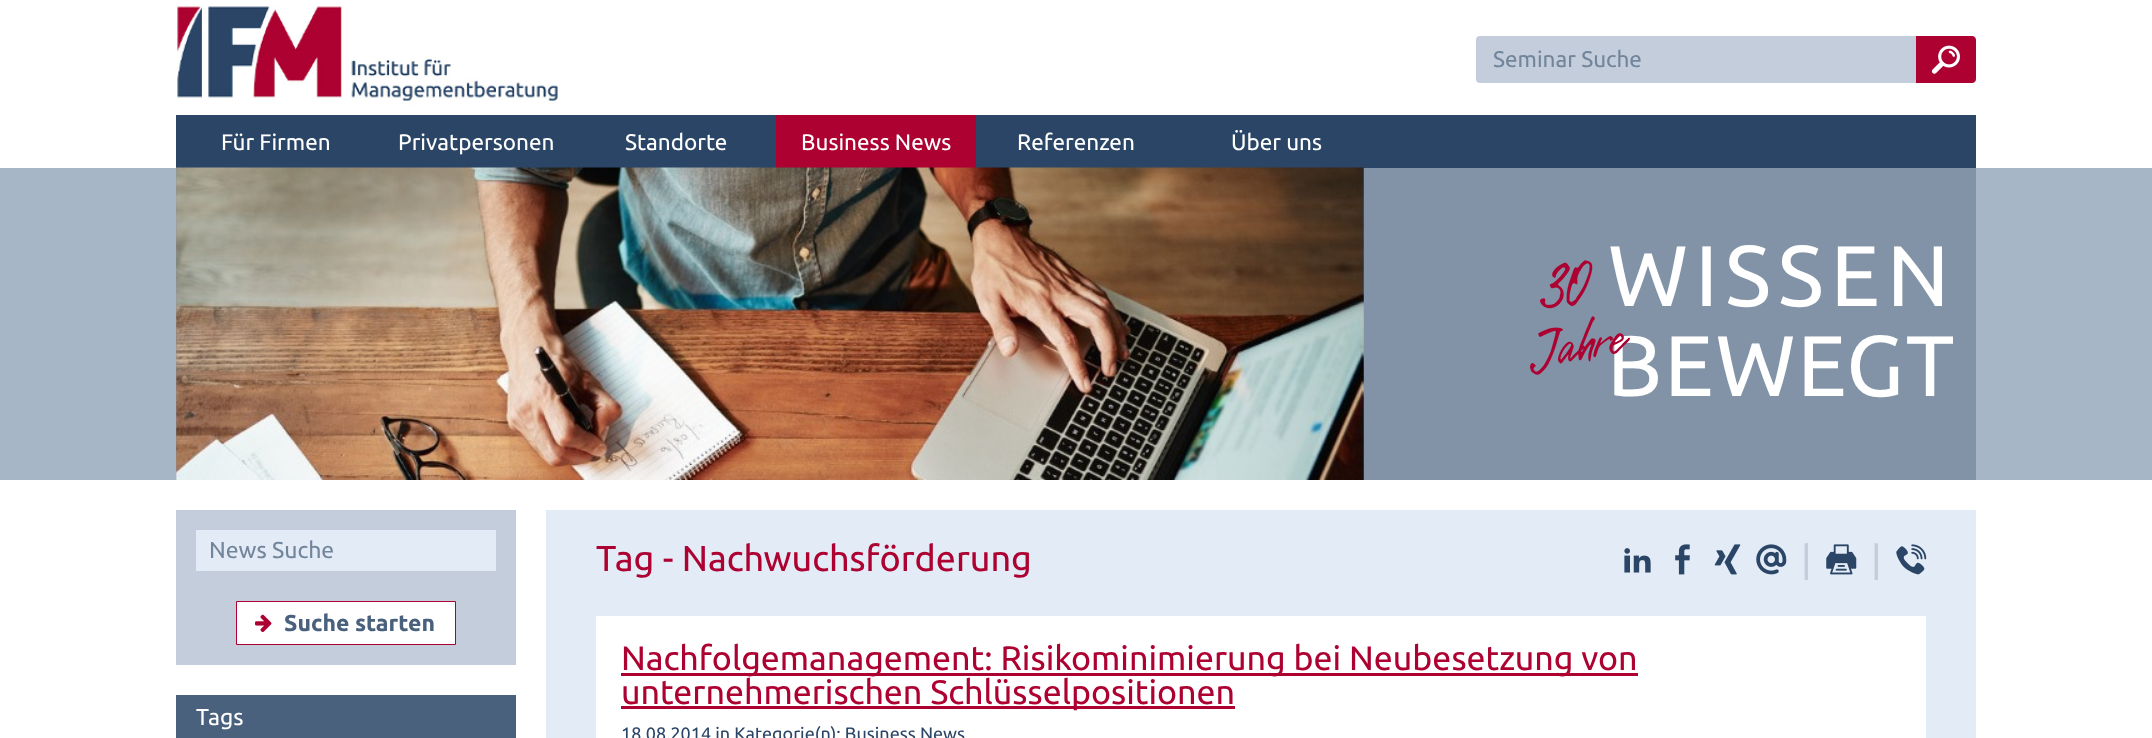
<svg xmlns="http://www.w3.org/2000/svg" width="2152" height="738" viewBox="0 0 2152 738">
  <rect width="100%" height="100%" fill="#fff"/>
  <image x="177" y="6" width="381" height="100" href="img/1.png"/>
  <rect x="1477.5" y="37.5" width="497" height="44" rx="2.5" fill="#c3cddc" stroke="#c3cddc" stroke-width="3"/>
  <path d="M1916 36H1972C1974 36 1976 38 1976 40V79C1976 81 1974 83 1972 83H1916Z" fill="#ad0131"/>
  <image x="1931" y="45" width="29" height="29" href="img/2.png"/>
  <path d="M176 115h1800v53H176z" fill="#2a4566"/>
  <path d="M776 115h200v53H776z" fill="#ad0131"/>
  <path d="M0 168h2152v312H0z" fill="#a6b6c7"/>
  <path d="M176 168h1800v312H176z" fill="#8293a7"/>
  <image x="176" y="167" width="1188" height="313" href="img/3.png"/>
  <path d="M176 510h340v155H176z" fill="#c3cddc"/>
  <path d="M196 530h300v41H196z" fill="#e2ebf6"/>
  <path d="M236.5 601.5h219v43H236.5z" fill="#fff" stroke="#ad0131"/>
  <image x="255" y="614" width="17" height="19" href="img/5.png"/>
  <path d="M176 695h340v43H176z" fill="#4a617d"/>
  <path d="M546 510h1430v228H546z" fill="#e2ebf6"/>
  <image x="1624" y="548" width="27" height="25" href="img/6.png"/>
  <image x="1675" y="544" width="15" height="31" href="img/7.png"/>
  <image x="1714" y="544" width="27" height="31" href="img/8.png"/>
  <image x="1756" y="544" width="31" height="31" href="img/9.png"/>
  <image x="1826" y="544" width="31" height="31" href="img/10.png"/>
  <image x="1896" y="544" width="31" height="31" href="img/11.png"/>
  <path d="M596 616h1330v122H596z" fill="#fff"/>
  <path d="M621 673h1017v3H621z" fill="#ad0131"/>
  <path d="M621 706h614v3H621z" fill="#ad0131"/>
  <text x="1493" y="67" font-family="Ubuntu" font-size="22.5" fill="#73859b">Seminar Suche</text>
  <g font-family="Ubuntu" font-size="22.5" fill="#fff">
    <text x="221" y="150">Für Firmen</text>
    <text x="398" y="150">Privatpersonen</text>
    <text x="625" y="150">Standorte</text>
    <text x="801" y="150">Business News</text>
    <text x="1017" y="150">Referenzen</text>
    <text x="1231" y="150">Über uns</text>
  </g>
  <text x="1608" y="306" font-family="Ubuntu" font-size="86" letter-spacing="7" fill="#fff">WISSEN</text>
  <text x="1607" y="396" font-family="Ubuntu" font-size="86" letter-spacing="2" fill="#fff">BEWEGT</text>
  <image x="1530" y="260" width="100" height="115" href="img/4.png"/>
  <text x="209" y="558" font-family="Ubuntu" font-size="23" fill="#73859b">News Suche</text>
  <text x="284" y="631" font-family="Ubuntu" font-size="23" font-weight="bold" fill="#4a617d">Suche starten</text>
  <text x="196" y="725" font-family="Ubuntu" font-size="23" fill="#fff">Tags</text>
  <text x="596" y="571" font-family="Ubuntu" font-size="36" fill="#ad0131">Tag - Nachwuchsförderung</text>
  <g font-family="Ubuntu" font-size="38" fill="#c3cddc">
    <text x="1801" y="573">|</text>
    <text x="1871" y="573">|</text>
  </g>
  <g font-family="Ubuntu" font-size="34" fill="#ad0131">
    <text x="621" y="670">Nachfolgemanagement: Risikominimierung bei Neubesetzung von</text>
    <text x="621" y="704">unternehmerischen Schlüsselpositionen</text>
  </g>
  <text x="621" y="740" font-family="Ubuntu" font-size="18" fill="#2a4566">18.08.2014 in Kategorie(n): Business News</text>
</svg>
